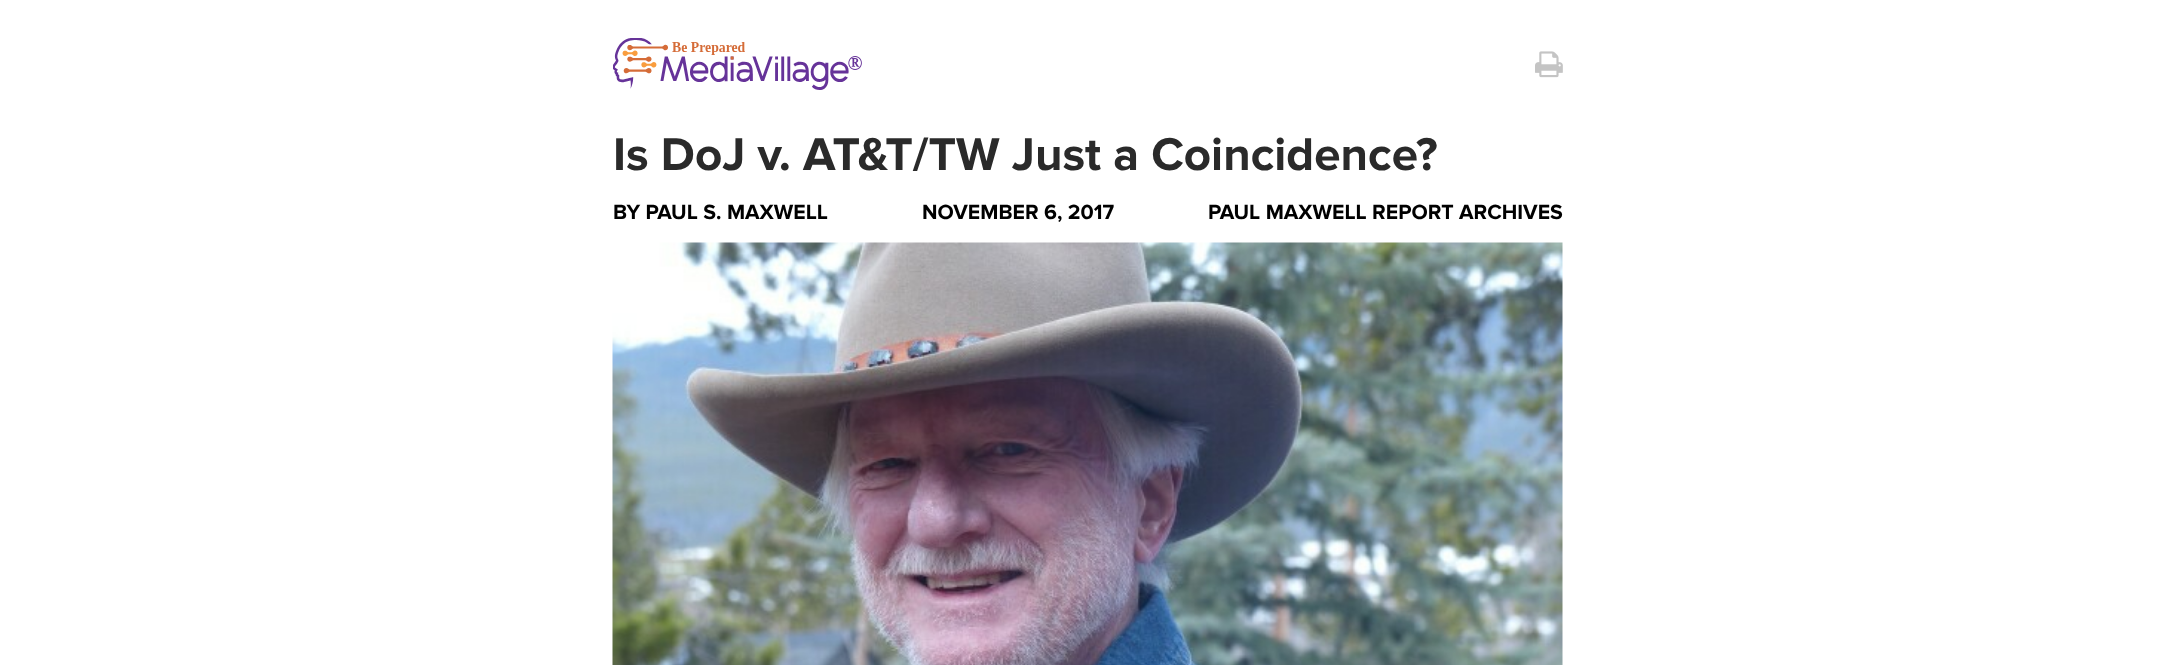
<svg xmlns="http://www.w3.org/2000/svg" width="2174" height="665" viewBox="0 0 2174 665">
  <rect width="100%" height="100%" fill="#fff"/>
  <image x="613" y="38" width="249" height="52" href="img/1.png"/>
  <image x="1535" y="51" width="28" height="27" href="img/2.png"/>
  <image x="612" y="242" width="951" height="423" href="img/3.png"/>
  <text x="613" y="170" font-family="Proxima Nova" font-size="47.5" font-weight="bold" fill="#2a2a2a">Is DoJ v. AT&amp;T/TW Just a Coincidence?</text>
  <g font-family="Proxima Nova" font-size="21.25" font-weight="bold" fill="#000">
    <text x="613" y="219">BY PAUL S. MAXWELL</text>
    <text x="922" y="219">NOVEMBER 6, 2017</text>
    <text x="1208" y="219">PAUL MAXWELL REPORT ARCHIVES</text>
  </g>
</svg>
